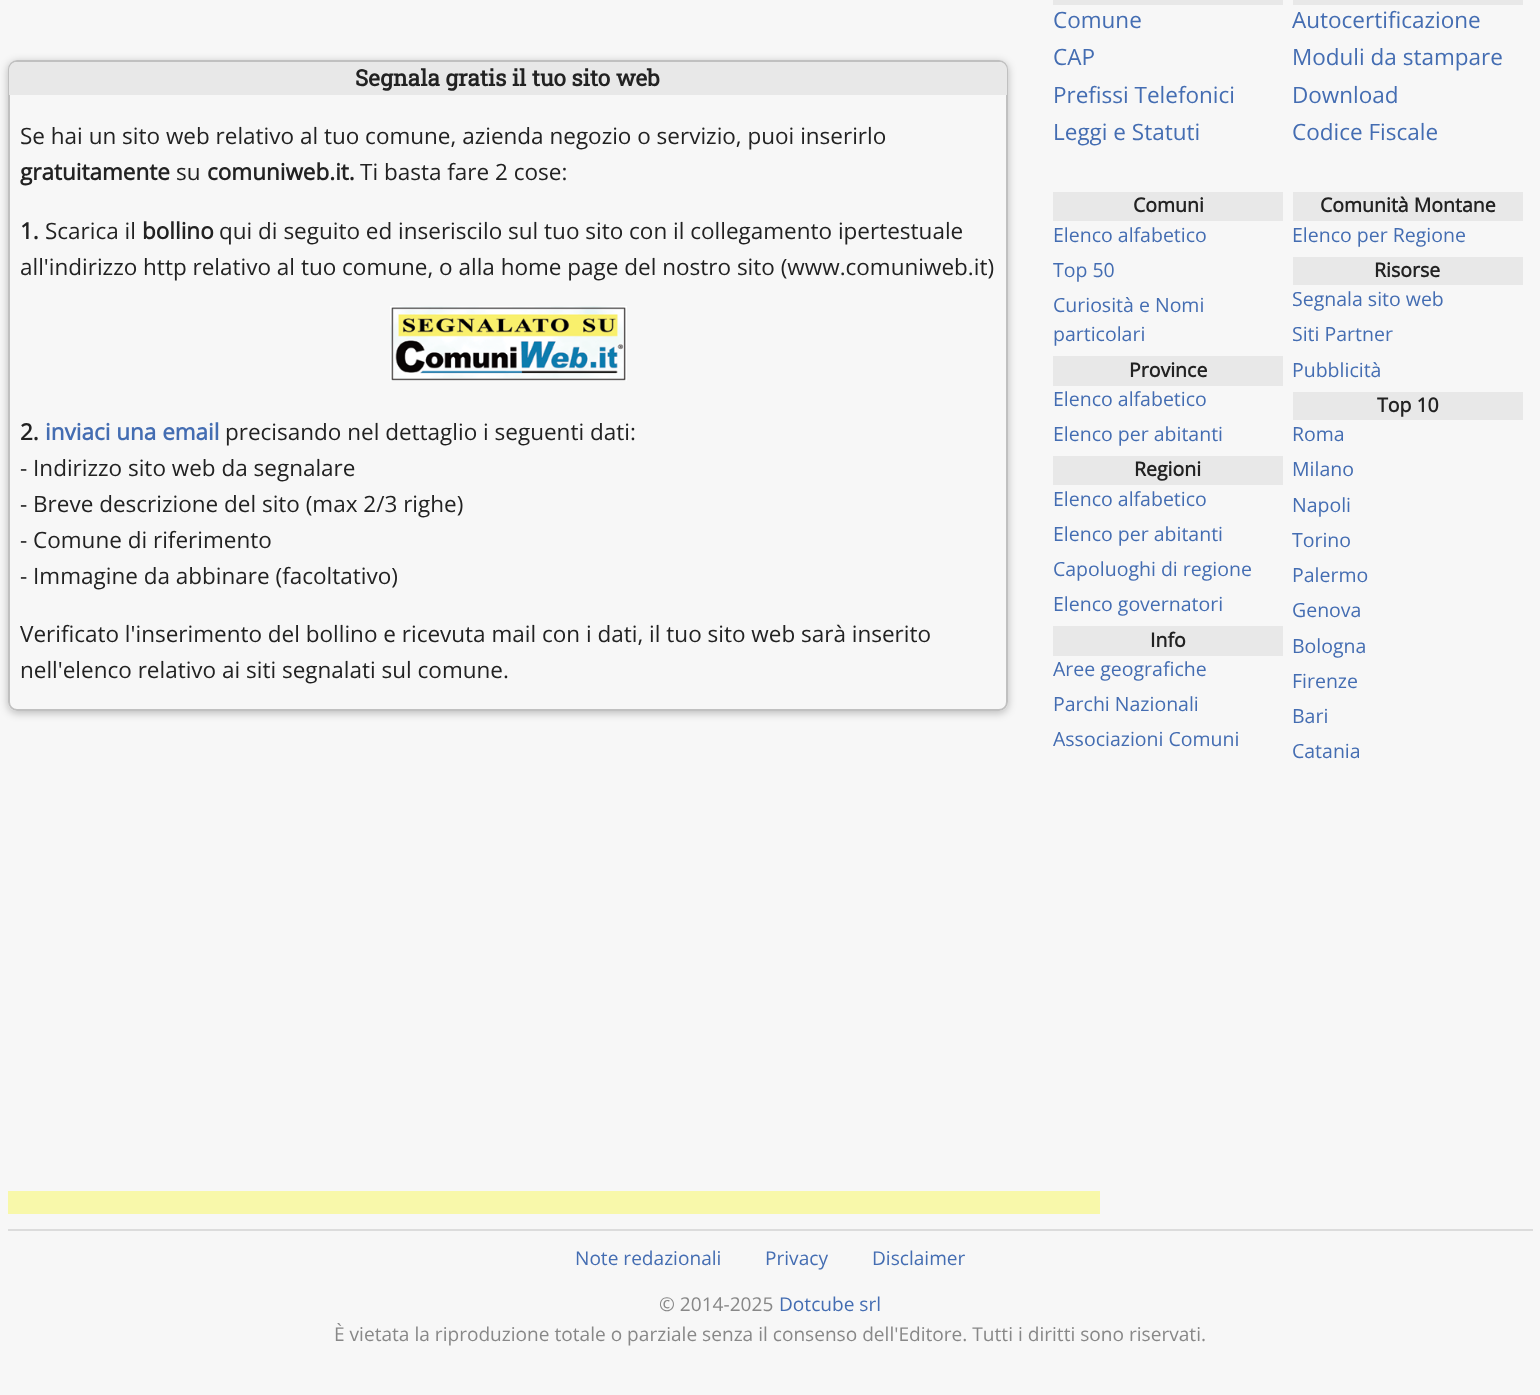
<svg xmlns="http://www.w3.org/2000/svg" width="1540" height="1395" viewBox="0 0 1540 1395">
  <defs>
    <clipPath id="clip1"><path d="M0 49H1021V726H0ZM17 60H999C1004 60 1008 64 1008 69V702C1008 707 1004 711 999 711H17C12 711 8 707 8 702V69C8 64 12 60 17 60Z" clip-rule="evenodd"/></clipPath>
  </defs>
  <rect width="100%" height="100%" fill="#f7f7f7"/>
  <g clip-path="url(#clip1)">
    <rect x="8" y="62" width="1000" height="651" rx="9" fill="#00000040" filter="blur(4px)"/>
  </g>
  <rect x="9" y="61" width="998" height="649" rx="8" fill="none" stroke="#c0c0c0" stroke-width="2"/>
  <path d="M17 62H999C1003.5 62 1007 65.5 1007 70V95H9V70C9 65.5 12.5 62 17 62Z" fill="#e8e8e8"/>
  <image x="390" y="306" width="237" height="75" href="img/1.png"/>
  <path d="M1053 0h230v5H1053z" fill="#e8e8e8"/>
  <path d="M1293 0h230v5H1293z" fill="#e8e8e8"/>
  <path d="M1053 192h230v29H1053z" fill="#e8e8e8"/>
  <path d="M1053 356h230v30H1053z" fill="#e8e8e8"/>
  <path d="M1053 456h230v29H1053z" fill="#e8e8e8"/>
  <path d="M1053 626h230v30H1053z" fill="#e8e8e8"/>
  <path d="M1293 192h230v29H1293z" fill="#e8e8e8"/>
  <path d="M1293 257h230v28H1293z" fill="#e8e8e8"/>
  <path d="M1293 392h230v28H1293z" fill="#e8e8e8"/>
  <path d="M8 1191h1092v23H8z" fill="#f8f8aa"/>
  <path d="M8 1229h1525v2H8z" fill="#dcdcdc"/>
  <text x="355" y="86" font-family="Roboto Slab" font-size="22.5" font-weight="bold" fill="#222">Segnala gratis il tuo sito web</text>
  <text x="20" y="144" font-family="Open Sans" font-size="22.5" fill="#222">Se hai un sito web relativo al tuo comune, azienda negozio o servizio, puoi inserirlo</text>
  <text x="20" y="180" font-family="Open Sans" font-size="22.5" font-weight="bold" fill="#222">gratuitamente</text>
  <text x="176" y="180" font-family="Open Sans" font-size="22.5" fill="#222">su</text>
  <text x="207" y="180" font-family="Open Sans" font-size="22.5" font-weight="bold" fill="#222">comuniweb.it.</text>
  <text x="360" y="180" font-family="Open Sans" font-size="22.5" fill="#222">Ti basta fare 2 cose:</text>
  <text x="20" y="239" font-family="Open Sans" font-size="22.5" font-weight="bold" fill="#222">1.</text>
  <text x="45" y="239" font-family="Open Sans" font-size="22.5" fill="#222">Scarica il</text>
  <text x="142" y="239" font-family="Open Sans" font-size="22.5" font-weight="bold" fill="#222">bollino</text>
  <g font-family="Open Sans" font-size="22.5" fill="#222">
    <text x="219" y="239">qui di seguito ed inseriscilo sul tuo sito con il collegamento ipertestuale</text>
    <text x="20" y="275">all'indirizzo http relativo al tuo comune, o alla home page del nostro sito (www.comuniweb.it)</text>
  </g>
  <text x="20" y="440" font-family="Open Sans" font-size="22.5" font-weight="bold" fill="#222">2.</text>
  <text x="45" y="440" font-family="Open Sans" font-size="22.5" font-weight="bold" fill="#446db2">inviaci una email</text>
  <g font-family="Open Sans" font-size="22.5" fill="#222">
    <text x="225" y="440">precisando nel dettaglio i seguenti dati:</text>
    <text x="20" y="476">- Indirizzo sito web da segnalare</text>
    <text x="20" y="512">- Breve descrizione del sito (max 2/3 righe)</text>
    <text x="20" y="548">- Comune di riferimento</text>
    <text x="20" y="584">- Immagine da abbinare (facoltativo)</text>
    <text x="20" y="642">Verificato l'inserimento del bollino e ricevuta mail con i dati, il tuo sito web sarà inserito</text>
    <text x="20" y="678">nell'elenco relativo ai siti segnalati sul comune.</text>
  </g>
  <g font-family="Open Sans" font-size="22.5" fill="#446db2">
    <text x="1053" y="28">Comune</text>
    <text x="1053" y="65">CAP</text>
    <text x="1053" y="103">Prefissi Telefonici</text>
    <text x="1053" y="140">Leggi e Statuti</text>
    <text x="1292" y="28">Autocertificazione</text>
    <text x="1292" y="65">Moduli da stampare</text>
    <text x="1292" y="103">Download</text>
    <text x="1292" y="140">Codice Fiscale</text>
  </g>
  <text x="1133" y="212" font-family="Open Sans" font-size="19.5" font-weight="bold" fill="#222">Comuni</text>
  <g font-family="Open Sans" font-size="19.5" fill="#446db2">
    <text x="1053" y="242">Elenco alfabetico</text>
    <text x="1053" y="277">Top 50</text>
    <text x="1053" y="312">Curiosità e Nomi</text>
    <text x="1053" y="341">particolari</text>
  </g>
  <text x="1129" y="377" font-family="Open Sans" font-size="19.5" font-weight="bold" fill="#222">Province</text>
  <g font-family="Open Sans" font-size="19.5" fill="#446db2">
    <text x="1053" y="406">Elenco alfabetico</text>
    <text x="1053" y="441">Elenco per abitanti</text>
  </g>
  <text x="1134" y="476" font-family="Open Sans" font-size="19.5" font-weight="bold" fill="#222">Regioni</text>
  <g font-family="Open Sans" font-size="19.5" fill="#446db2">
    <text x="1053" y="506">Elenco alfabetico</text>
    <text x="1053" y="541">Elenco per abitanti</text>
    <text x="1053" y="576">Capoluoghi di regione</text>
    <text x="1053" y="611">Elenco governatori</text>
  </g>
  <text x="1150" y="647" font-family="Open Sans" font-size="19.5" font-weight="bold" fill="#222">Info</text>
  <g font-family="Open Sans" font-size="19.5" fill="#446db2">
    <text x="1053" y="676">Aree geografiche</text>
    <text x="1053" y="711">Parchi Nazionali</text>
    <text x="1053" y="746">Associazioni Comuni</text>
  </g>
  <text x="1320" y="212" font-family="Open Sans" font-size="19.5" font-weight="bold" fill="#222">Comunità Montane</text>
  <text x="1292" y="242" font-family="Open Sans" font-size="19.5" fill="#446db2">Elenco per Regione</text>
  <text x="1374" y="277" font-family="Open Sans" font-size="19.5" font-weight="bold" fill="#222">Risorse</text>
  <g font-family="Open Sans" font-size="19.5" fill="#446db2">
    <text x="1292" y="306">Segnala sito web</text>
    <text x="1292" y="341">Siti Partner</text>
    <text x="1292" y="377">Pubblicità</text>
  </g>
  <text x="1377" y="412" font-family="Open Sans" font-size="19.5" font-weight="bold" fill="#222">Top 10</text>
  <g font-family="Open Sans" font-size="19.5" fill="#446db2">
    <text x="1292" y="441">Roma</text>
    <text x="1292" y="476">Milano</text>
    <text x="1292" y="512">Napoli</text>
    <text x="1292" y="547">Torino</text>
    <text x="1292" y="582">Palermo</text>
    <text x="1292" y="617">Genova</text>
    <text x="1292" y="653">Bologna</text>
    <text x="1292" y="688">Firenze</text>
    <text x="1292" y="723">Bari</text>
    <text x="1292" y="758">Catania</text>
  </g>
  <g font-family="Open Sans" font-size="19.1" fill="#446db2">
    <text x="575" y="1265">Note redazionali</text>
    <text x="765" y="1265">Privacy</text>
    <text x="872" y="1265">Disclaimer</text>
  </g>
  <text x="659" y="1311" font-family="Open Sans" font-size="19.1" fill="#888">© 2014-2025</text>
  <text x="779" y="1311" font-family="Open Sans" font-size="19.1" fill="#446db2">Dotcube srl</text>
  <text x="334" y="1341" font-family="Open Sans" font-size="19.1" fill="#888">È vietata la riproduzione totale o parziale senza il consenso dell'Editore. Tutti i diritti sono riservati.</text>
</svg>
